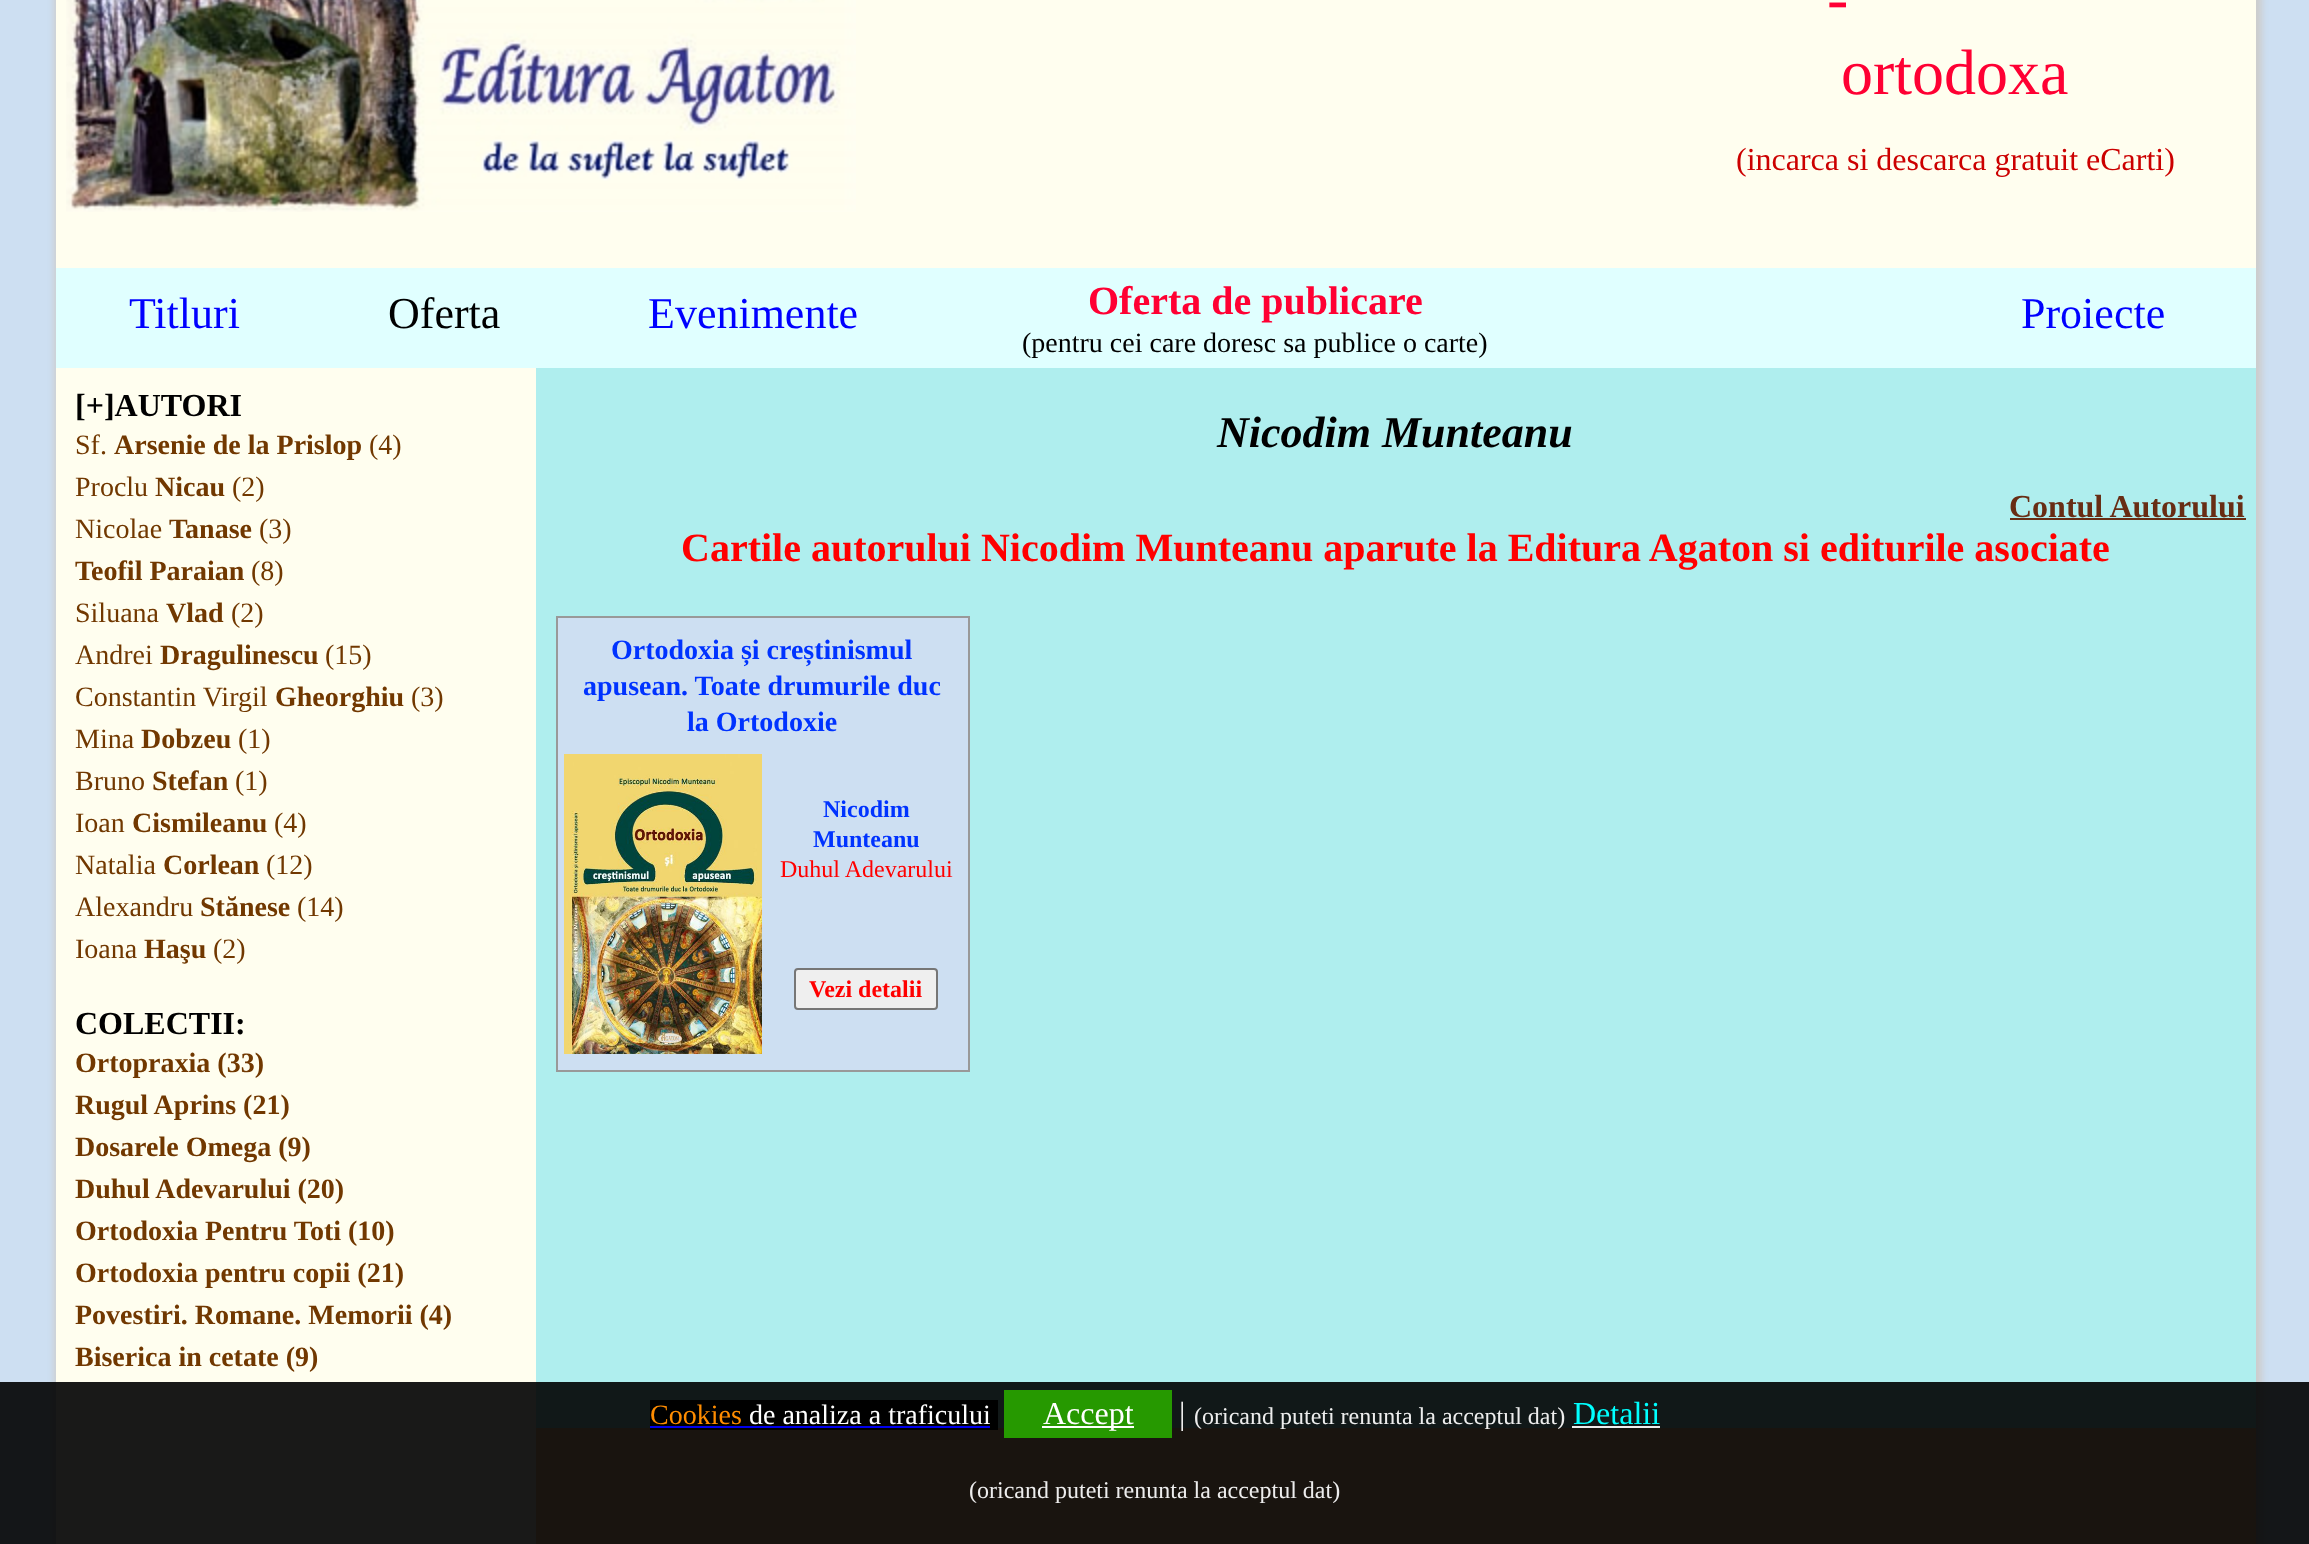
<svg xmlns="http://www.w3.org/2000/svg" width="2309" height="1544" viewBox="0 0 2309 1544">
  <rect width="100%" height="100%" fill="#cddff2"/>
  <rect x="54" y="-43" width="2208" height="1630" rx="34" fill="#ccc" filter="blur(3px)"/>
  <path d="M56 0h2200v268H56z" fill="#fffeef"/>
  <image x="66" y="0" width="790" height="212" href="img/1.png"/>
  <path d="M56 268h2200v100H56z" fill="#e0ffff"/>
  <path d="M536 1428h1720v116H536z" fill="#fc9"/>
  <path d="M56 368h480v1176H56z" fill="#fffeef"/>
  <path d="M536 368h1720v1060H536z" fill="#afeeee"/>
  <path d="M2010 518h236v2H2010z" fill="#682d14"/>
  <path d="M557 617h412v454H557z" fill="#cddff2" stroke="#999" stroke-width="2"/>
  <image x="564" y="754" width="198" height="300" href="img/2.png"/>
  <rect x="795" y="969" width="142" height="40" rx="3" fill="#efefef" stroke="#767676" stroke-width="2"/>
  <path d="M0 1382h2309v162H0z" fill="#000000e6"/>
  <path d="M650 1400h340v30H650z" fill="#000"/>
  <path d="M650 1426h340v2H650z" fill="#00e"/>
  <path d="M1004 1390h168v48H1004z" fill="#269900"/>
  <path d="M1042 1426h92v2H1042z" fill="#fff"/>
  <path d="M1572 1426h88v2H1572z" fill="#ededed"/>
  <g font-family="Liberation Serif" font-size="64" fill="#f03">
    <text x="1827" y="20">-</text>
    <text x="1841" y="94">ortodoxa</text>
  </g>
  <text x="1736" y="170" font-family="Liberation Serif" font-size="32" fill="#c00">(incarca si descarca gratuit eCarti)</text>
  <text x="129" y="328" font-family="Liberation Serif" font-size="44" fill="#00f">Titluri</text>
  <text x="388" y="328" font-family="Liberation Serif" font-size="44" fill="#000">Oferta</text>
  <text x="648" y="328" font-family="Liberation Serif" font-size="44" fill="#00f">Evenimente</text>
  <text x="1088" y="314" font-family="Liberation Serif" font-size="40" font-weight="bold" fill="#f03">Oferta de publicare</text>
  <text x="1022" y="352" font-family="Liberation Serif" font-size="28" fill="#000">(pentru cei care doresc sa publice o carte)</text>
  <text x="2021" y="328" font-family="Liberation Serif" font-size="44" fill="#00f">Proiecte</text>
  <text x="75" y="416" font-family="Liberation Serif" font-size="32" font-weight="bold" fill="#000">[+]AUTORI</text>
  <text x="75" y="454" font-family="Liberation Serif" font-size="28" fill="#713800">Sf.</text>
  <text x="114" y="454" font-family="Liberation Serif" font-size="28" font-weight="bold" fill="#713800">Arsenie de la Prislop</text>
  <g font-family="Liberation Serif" font-size="28" fill="#713800">
    <text x="369" y="454">(4)</text>
    <text x="75" y="496">Proclu</text>
  </g>
  <text x="155" y="496" font-family="Liberation Serif" font-size="28" font-weight="bold" fill="#713800">Nicau</text>
  <g font-family="Liberation Serif" font-size="28" fill="#713800">
    <text x="232" y="496">(2)</text>
    <text x="75" y="538">Nicolae</text>
  </g>
  <text x="169" y="538" font-family="Liberation Serif" font-size="28" font-weight="bold" fill="#713800">Tanase</text>
  <text x="259" y="538" font-family="Liberation Serif" font-size="28" fill="#713800">(3)</text>
  <text x="75" y="580" font-family="Liberation Serif" font-size="28" font-weight="bold" fill="#713800">Teofil Paraian</text>
  <g font-family="Liberation Serif" font-size="28" fill="#713800">
    <text x="251" y="580">(8)</text>
    <text x="75" y="622">Siluana</text>
  </g>
  <text x="166" y="622" font-family="Liberation Serif" font-size="28" font-weight="bold" fill="#713800">Vlad</text>
  <g font-family="Liberation Serif" font-size="28" fill="#713800">
    <text x="231" y="622">(2)</text>
    <text x="75" y="664">Andrei</text>
  </g>
  <text x="160" y="664" font-family="Liberation Serif" font-size="28" font-weight="bold" fill="#713800">Dragulinescu</text>
  <g font-family="Liberation Serif" font-size="28" fill="#713800">
    <text x="325" y="664">(15)</text>
    <text x="75" y="706">Constantin Virgil</text>
  </g>
  <text x="275" y="706" font-family="Liberation Serif" font-size="28" font-weight="bold" fill="#713800">Gheorghiu</text>
  <g font-family="Liberation Serif" font-size="28" fill="#713800">
    <text x="411" y="706">(3)</text>
    <text x="75" y="748">Mina</text>
  </g>
  <text x="141" y="748" font-family="Liberation Serif" font-size="28" font-weight="bold" fill="#713800">Dobzeu</text>
  <g font-family="Liberation Serif" font-size="28" fill="#713800">
    <text x="238" y="748">(1)</text>
    <text x="75" y="790">Bruno</text>
  </g>
  <text x="152" y="790" font-family="Liberation Serif" font-size="28" font-weight="bold" fill="#713800">Stefan</text>
  <g font-family="Liberation Serif" font-size="28" fill="#713800">
    <text x="235" y="790">(1)</text>
    <text x="75" y="832">Ioan</text>
  </g>
  <text x="132" y="832" font-family="Liberation Serif" font-size="28" font-weight="bold" fill="#713800">Cismileanu</text>
  <g font-family="Liberation Serif" font-size="28" fill="#713800">
    <text x="274" y="832">(4)</text>
    <text x="75" y="874">Natalia</text>
  </g>
  <text x="163" y="874" font-family="Liberation Serif" font-size="28" font-weight="bold" fill="#713800">Corlean</text>
  <g font-family="Liberation Serif" font-size="28" fill="#713800">
    <text x="266" y="874">(12)</text>
    <text x="75" y="916">Alexandru</text>
  </g>
  <text x="200" y="916" font-family="Liberation Serif" font-size="28" font-weight="bold" fill="#713800">Stănese</text>
  <g font-family="Liberation Serif" font-size="28" fill="#713800">
    <text x="297" y="916">(14)</text>
    <text x="75" y="958">Ioana</text>
  </g>
  <text x="144" y="958" font-family="Liberation Serif" font-size="28" font-weight="bold" fill="#713800">Haşu</text>
  <text x="213" y="958" font-family="Liberation Serif" font-size="28" fill="#713800">(2)</text>
  <text x="75" y="1034" font-family="Liberation Serif" font-size="32" font-weight="bold" fill="#000">COLECTII:</text>
  <g font-family="Liberation Serif" font-size="28" font-weight="bold" fill="#713800">
    <text x="75" y="1072">Ortopraxia (33)</text>
    <text x="75" y="1114">Rugul Aprins (21)</text>
    <text x="75" y="1156">Dosarele Omega (9)</text>
    <text x="75" y="1198">Duhul Adevarului (20)</text>
    <text x="75" y="1240">Ortodoxia Pentru Toti (10)</text>
    <text x="75" y="1282">Ortodoxia pentru copii (21)</text>
    <text x="75" y="1324">Povestiri. Romane. Memorii (4)</text>
    <text x="75" y="1366">Biserica in cetate (9)</text>
  </g>
  <text x="1217" y="447" font-family="Liberation Serif" font-size="44" font-weight="bold" font-style="italic" fill="#000">Nicodim Munteanu</text>
  <text x="2009" y="517" font-family="Liberation Serif" font-size="32" font-weight="bold" fill="#682d14">Contul Autorului</text>
  <text x="681" y="561" font-family="Liberation Serif" font-size="40" font-weight="bold" fill="#f00">Cartile autorului Nicodim Munteanu aparute la Editura Agaton si editurile asociate</text>
  <g font-family="Liberation Serif" font-size="28" font-weight="bold" fill="#03f">
    <text x="611" y="659">Ortodoxia și creștinismul</text>
    <text x="583" y="695">apusean. Toate drumurile duc</text>
    <text x="687" y="731">la Ortodoxie</text>
  </g>
  <g font-family="Liberation Serif" font-size="24" font-weight="bold" fill="#03f">
    <text x="823" y="817">Nicodim</text>
    <text x="813" y="847">Munteanu</text>
  </g>
  <text x="780" y="877" font-family="Liberation Serif" font-size="24" fill="#f00">Duhul Adevarului</text>
  <text x="809" y="997" font-family="Liberation Serif" font-size="24" font-weight="bold" fill="#f00">Vezi detalii</text>
  <text x="650" y="1424" font-family="Liberation Serif" font-size="28" fill="#ff8c00">Cookies</text>
  <text x="749" y="1424" font-family="Liberation Serif" font-size="28" fill="#fff">de analiza a traficului</text>
  <path d="M990 1400h8v30H990z" fill="#000"/>
  <text x="1043" y="1424" font-family="Liberation Serif" font-size="32" fill="#fff">Accept</text>
  <text x="1179" y="1424" font-family="Liberation Serif" font-size="32" fill="#ededed">|</text>
  <text x="1194" y="1424" font-family="Liberation Serif" font-size="24" fill="#ededed">(oricand puteti renunta la acceptul dat)</text>
  <text x="1573" y="1424" font-family="Liberation Serif" font-size="32" fill="#0ff">Detalii</text>
  <text x="969" y="1498" font-family="Liberation Serif" font-size="24" fill="#ededed">(oricand puteti renunta la acceptul dat)</text>
</svg>
